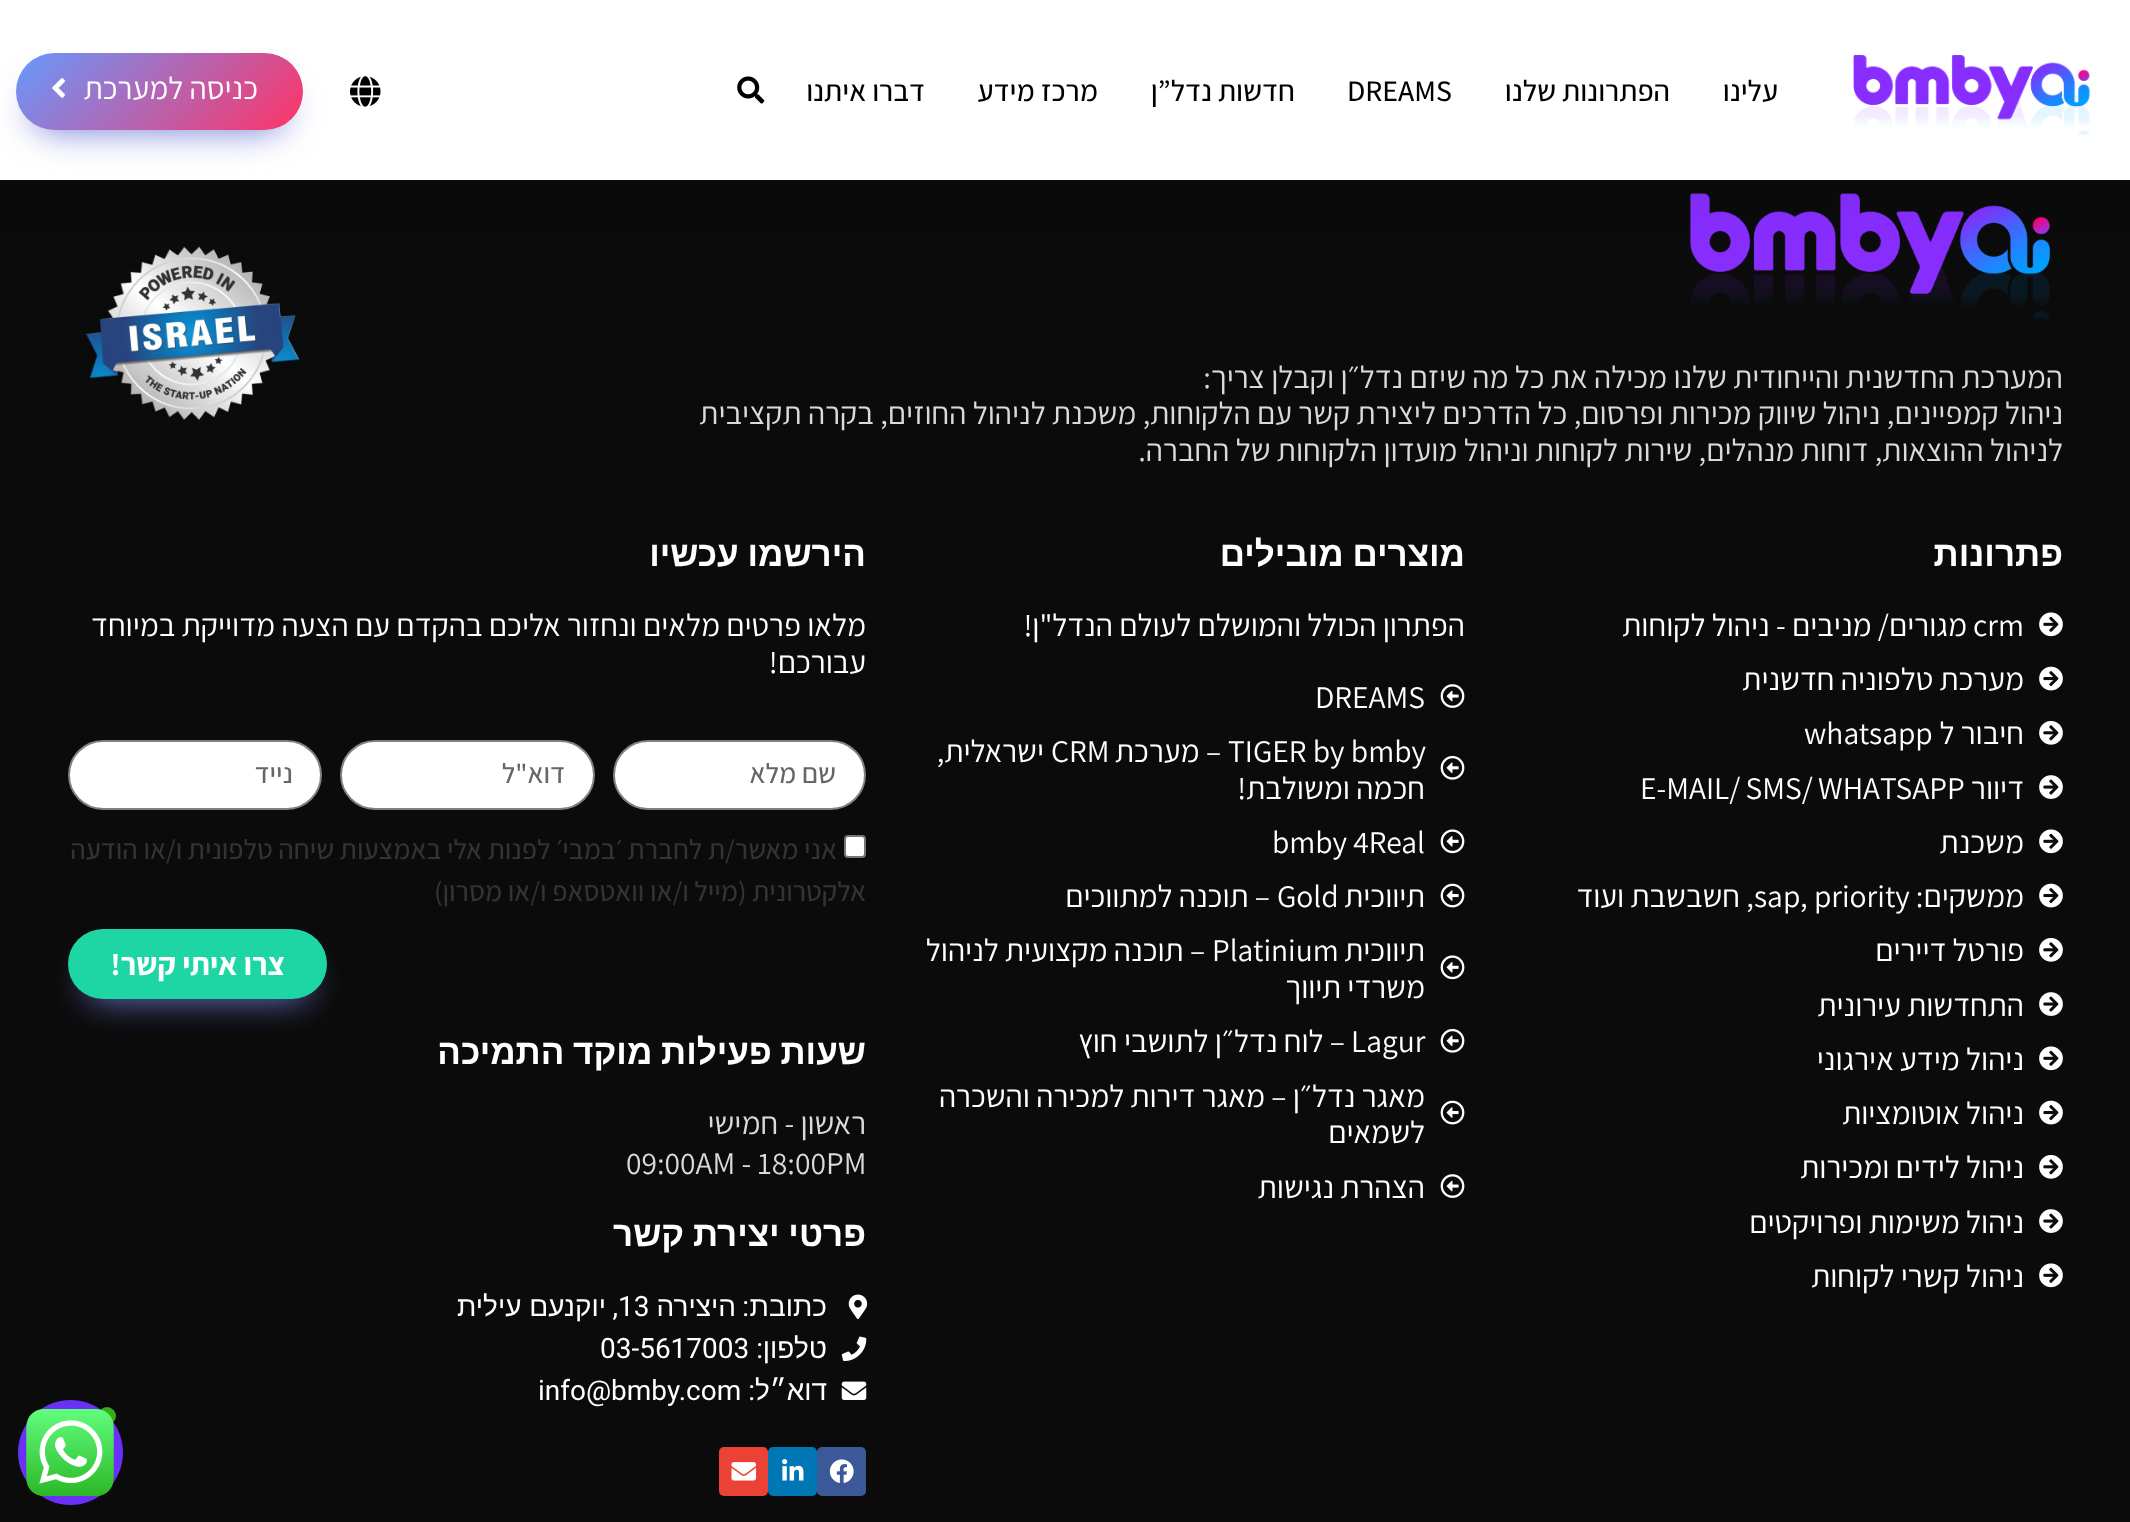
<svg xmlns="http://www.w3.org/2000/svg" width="2130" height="1522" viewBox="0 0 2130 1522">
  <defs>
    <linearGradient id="g1" gradientUnits="userSpaceOnUse" x1="68" y1="0" x2="250" y2="182"><stop offset="0" stop-color="#69f"/><stop offset="1" stop-color="#f36"/></linearGradient>
  </defs>
  <rect width="100%" height="100%" fill="#0b0b0b"/>
  <image x="1690" y="193" width="360" height="127" href="img/5.png"/>
  <image x="85" y="246" width="215" height="174" href="img/6.png"/>
  <path d="M0 9h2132v180H0z" fill="#0000001a" filter="blur(26px)"/>
  <path d="M0 0h2130v180H0z" fill="#fff"/>
  <image x="1853" y="55" width="237" height="81" href="img/1.png"/>
  <image x="737" y="76" width="28" height="28" href="img/2.png"/>
  <image x="350" y="76" width="31" height="31" href="img/3.png"/>
  <rect x="33" y="88" width="252" height="42" rx="21" fill="#6e79d6" filter="blur(17.5px)"/>
  <rect x="16" y="53" width="287" height="77" rx="38.5" fill="url(#g1)"/>
  <image x="52" y="78" width="13" height="20" href="img/4.png"/>
  <image x="2039" y="612" width="24" height="25" href="img/7.png"/>
  <image x="2039" y="666" width="24" height="25" href="img/8.png"/>
  <image x="2039" y="721" width="24" height="24" href="img/9.png"/>
  <image x="2039" y="775" width="24" height="24" href="img/10.png"/>
  <image x="2039" y="829" width="24" height="25" href="img/7.png"/>
  <image x="2039" y="883" width="24" height="25" href="img/8.png"/>
  <image x="2039" y="938" width="24" height="24" href="img/9.png"/>
  <image x="2039" y="992" width="24" height="24" href="img/10.png"/>
  <image x="2039" y="1046" width="24" height="25" href="img/7.png"/>
  <image x="2039" y="1100" width="24" height="25" href="img/8.png"/>
  <image x="2039" y="1155" width="24" height="24" href="img/9.png"/>
  <image x="2039" y="1209" width="24" height="24" href="img/10.png"/>
  <image x="2039" y="1263" width="24" height="25" href="img/7.png"/>
  <image x="1440" y="684" width="25" height="24" href="img/11.png"/>
  <image x="1440" y="755" width="25" height="25" href="img/12.png"/>
  <image x="1440" y="829" width="25" height="25" href="img/13.png"/>
  <image x="1440" y="883" width="25" height="25" href="img/14.png"/>
  <image x="1440" y="955" width="25" height="25" href="img/13.png"/>
  <image x="1440" y="1028" width="25" height="25" href="img/12.png"/>
  <image x="1440" y="1100" width="25" height="25" href="img/14.png"/>
  <image x="1440" y="1174" width="25" height="24" href="img/11.png"/>
  <rect x="614" y="741" width="251" height="68" rx="34" fill="#fff" stroke="#858080" stroke-width="2"/>
  <rect x="341" y="741" width="253" height="68" rx="34" fill="#fff" stroke="#858080" stroke-width="2"/>
  <rect x="69" y="741" width="252" height="68" rx="34" fill="#fff" stroke="#858080" stroke-width="2"/>
  <rect x="845" y="836" width="20" height="21" rx="3" fill="#fff" stroke="#767676" stroke-width="2"/>
  <rect x="86" y="964" width="224" height="35" rx="17.5" fill="#6e79d6" filter="blur(17.5px)"/>
  <rect x="68" y="929" width="259" height="70" rx="35" fill="#1ed5a4"/>
  <image x="848" y="1294" width="20" height="25" href="img/15.png"/>
  <image x="841" y="1336" width="26" height="26" href="img/16.png"/>
  <image x="841" y="1381" width="26" height="19" href="img/17.png"/>
  <rect x="817" y="1447" width="49" height="49" rx="5" fill="#3b5998"/>
  <image x="829" y="1459" width="25" height="24" href="img/18.png"/>
  <rect x="768" y="1447" width="49" height="49" rx="5" fill="#0077b5"/>
  <image x="782" y="1459" width="22" height="22" href="img/19.png"/>
  <rect x="719" y="1447" width="49" height="49" rx="5" fill="#ea4335"/>
  <image x="731" y="1462" width="25" height="19" href="img/20.png"/>
  <circle cx="70.5" cy="1452.5" r="52.5" fill="#6a30f5"/>
  <circle cx="107" cy="1416" r="9" fill="#35ac19"/>
  <image x="26" y="1409" width="88" height="87" href="img/21.png"/>
  <g font-family="Assistant" font-size="29.75" font-weight="500" direction="rtl" fill="#000">
    <text x="1778" y="101">עלינו</text>
    <text x="1670" y="101">הפתרונות שלנו</text>
  </g>
  <text x="1347" y="101" font-family="Assistant" font-size="29.75" font-weight="500" fill="#000">DREAMS</text>
  <g font-family="Assistant" font-size="29.75" font-weight="500" direction="rtl" fill="#000">
    <text x="1295" y="101">חדשות נדל”ן</text>
    <text x="1098" y="101">מרכז מידע</text>
    <text x="925" y="101">דברו איתנו</text>
  </g>
  <text x="258" y="99" font-family="Assistant" font-size="31.5" direction="rtl" fill="#fff">כניסה למערכת</text>
  <g font-family="Assistant" font-size="31.5" direction="rtl" fill="#dadada">
    <text x="2063" y="388">המערכת החדשנית והייחודית שלנו מכילה את כל מה שיזם נדל״ן וקבלן צריך:</text>
    <text x="2063" y="424">ניהול קמפיינים, ניהול שיווק מכירות ופרסום, כל הדרכים ליצירת קשר עם הלקוחות, משכנת לניהול החוזים, בקרה תקציבית</text>
    <text x="2063" y="461">לניהול ההוצאות, דוחות מנהלים, שירות לקוחות וניהול מועדון הלקוחות של החברה.</text>
  </g>
  <text x="2063" y="566" font-family="Liberation Sans" font-size="35" font-weight="bold" direction="rtl" fill="#fff">פתרונות</text>
  <text x="1973" y="636" font-family="Assistant" font-size="31.5" fill="#fff">crm</text>
  <g font-family="Assistant" font-size="31.5" direction="rtl" fill="#fff">
    <text x="1967" y="636">מגורים/ מניבים - ניהול לקוחות</text>
    <text x="2024" y="690">מערכת טלפוניה חדשנית</text>
    <text x="2024" y="744">חיבור ל</text>
  </g>
  <text x="1804" y="744" font-family="Assistant" font-size="31.5" fill="#fff">whatsapp</text>
  <text x="2024" y="799" font-family="Assistant" font-size="31.5" direction="rtl" fill="#fff">דיוור</text>
  <text x="1640" y="799" word-spacing="-1" font-family="Assistant" font-size="31.5" fill="#fff">E-MAIL/ SMS/ WHATSAPP</text>
  <g font-family="Assistant" font-size="31.5" direction="rtl" fill="#fff">
    <text x="2024" y="853">משכנת</text>
    <text x="2024" y="907">ממשקים:</text>
  </g>
  <text x="1754" y="907" font-family="Assistant" font-size="31.5" fill="#fff">sap, priority</text>
  <g font-family="Assistant" font-size="31.5" direction="rtl" fill="#fff">
    <text x="1754" y="907">, חשבשבת ועוד</text>
    <text x="2024" y="961">פורטל דיירים</text>
    <text x="2024" y="1016">התחדשות עירונית</text>
    <text x="2024" y="1070">ניהול מידע אירגוני</text>
    <text x="2024" y="1124">ניהול אוטומציות</text>
    <text x="2024" y="1178">ניהול לידים ומכירות</text>
    <text x="2024" y="1233">ניהול משימות ופרויקטים</text>
    <text x="2024" y="1287">ניהול קשרי לקוחות</text>
  </g>
  <text x="1465" y="566" word-spacing="-1" font-family="Liberation Sans" font-size="35" font-weight="bold" direction="rtl" fill="#fff">מוצרים מובילים</text>
  <text x="1465" y="636" font-family="Assistant" font-size="31.5" direction="rtl" fill="#fff">הפתרון הכולל והמושלם לעולם הנדל"ן!</text>
  <g font-family="Assistant" font-size="31.5" fill="#fff">
    <text x="1315" y="708">DREAMS</text>
    <text x="1228" y="762">TIGER by bmby</text>
  </g>
  <text x="1221" y="762" font-family="Assistant" font-size="31.5" direction="rtl" fill="#fff">– מערכת</text>
  <text x="1051" y="762" font-family="Assistant" font-size="31.5" fill="#fff">CRM</text>
  <g font-family="Assistant" font-size="31.5" direction="rtl" fill="#fff">
    <text x="1044" y="762">ישראלית,</text>
    <text x="1425" y="799">חכמה ומשולבת!</text>
  </g>
  <text x="1272" y="853" font-family="Assistant" font-size="31.5" fill="#fff">bmby 4Real</text>
  <text x="1425" y="907" font-family="Assistant" font-size="31.5" direction="rtl" fill="#fff">תיווכית</text>
  <text x="1277" y="907" font-family="Assistant" font-size="31.5" fill="#fff">Gold</text>
  <g font-family="Assistant" font-size="31.5" direction="rtl" fill="#fff">
    <text x="1270" y="907">– תוכנה למתווכים</text>
    <text x="1425" y="961">תיווכית</text>
  </g>
  <text x="1212" y="961" font-family="Assistant" font-size="31.5" fill="#fff">Platinium</text>
  <g font-family="Assistant" font-size="31.5" direction="rtl" fill="#fff">
    <text x="1205" y="961">– תוכנה מקצועית לניהול</text>
    <text x="1425" y="998">משרדי תיווך</text>
  </g>
  <text x="1351" y="1052" font-family="Assistant" font-size="31.5" fill="#fff">Lagur</text>
  <g font-family="Assistant" font-size="31.5" direction="rtl" fill="#fff">
    <text x="1345" y="1052">– לוח נדל״ן לתושבי חוץ</text>
    <text x="1425" y="1107">מאגר נדל״ן – מאגר דירות למכירה והשכרה</text>
    <text x="1425" y="1143">לשמאים</text>
    <text x="1425" y="1198">הצהרת נגישות</text>
  </g>
  <text x="866" y="566" word-spacing="-1" font-family="Liberation Sans" font-size="35" font-weight="bold" direction="rtl" fill="#fff">הירשמו עכשיו</text>
  <g font-family="Assistant" font-size="31.5" direction="rtl" fill="#fff">
    <text x="866" y="636">מלאו פרטים מלאים ונחזור אליכם בהקדם עם הצעה מדוייקת במיוחד</text>
    <text x="866" y="673">עבורכם!</text>
  </g>
  <g font-family="Assistant" font-size="28" font-weight="500" direction="rtl" fill="#666">
    <text x="836" y="783">שם מלא</text>
    <text x="565" y="783">דוא"ל</text>
    <text x="293" y="783">נייד</text>
  </g>
  <g font-family="Assistant" font-size="28" font-weight="500" direction="rtl" fill="#333">
    <text x="837" y="859">אני מאשר/ת לחברת ׳במבי׳ לפנות אלי באמצעות שיחה טלפונית ו/או הודעה</text>
    <text x="866" y="901">אלקטרונית (מייל ו/או וואטסאפ ו/או מסרון)</text>
  </g>
  <text x="285" y="975" font-family="Assistant" font-size="31.5" font-weight="bold" direction="rtl" fill="#fff">צרו איתי קשר!</text>
  <text x="866" y="1064" word-spacing="-1" font-family="Liberation Sans" font-size="35" font-weight="bold" direction="rtl" fill="#fff">שעות פעילות מוקד התמיכה</text>
  <text x="866" y="1134" font-family="Assistant" font-size="31.5" direction="rtl" fill="#dadada">ראשון - חמישי</text>
  <text x="626" y="1174" font-family="Assistant" font-size="31.5" fill="#dadada">09:00AM - 18:00PM</text>
  <text x="866" y="1246" word-spacing="-1" font-family="Liberation Sans" font-size="35" font-weight="bold" direction="rtl" fill="#fff">פרטי יצירת קשר</text>
  <text x="827" y="1316" font-family="Liberation Sans" font-size="28" direction="rtl" fill="#fff">כתובת</text>
  <text x="749" y="1316" font-family="Roboto" font-size="28" direction="rtl" fill="#fff">:</text>
  <text x="736" y="1316" font-family="Liberation Sans" font-size="28" direction="rtl" fill="#fff">היצירה</text>
  <text x="618" y="1316" font-family="Roboto" font-size="28" fill="#fff">13</text>
  <text x="618" y="1316" font-family="Roboto" font-size="28" direction="rtl" fill="#fff">,</text>
  <g font-family="Liberation Sans" font-size="28" direction="rtl" fill="#fff">
    <text x="606" y="1316">יוקנעם עילית</text>
    <text x="827" y="1358">טלפון</text>
  </g>
  <text x="763" y="1358" font-family="Roboto" font-size="28" direction="rtl" fill="#fff">:</text>
  <text x="600" y="1358" font-family="Roboto" font-size="28" fill="#fff">03-5617003</text>
  <text x="827" y="1400" font-family="Liberation Sans" font-size="28" direction="rtl" fill="#fff">דוא״ל</text>
  <text x="755" y="1400" font-family="Roboto" font-size="28" direction="rtl" fill="#fff">:</text>
  <text x="538" y="1400" font-family="Roboto" font-size="28" fill="#fff">info@bmby.com</text>
</svg>
